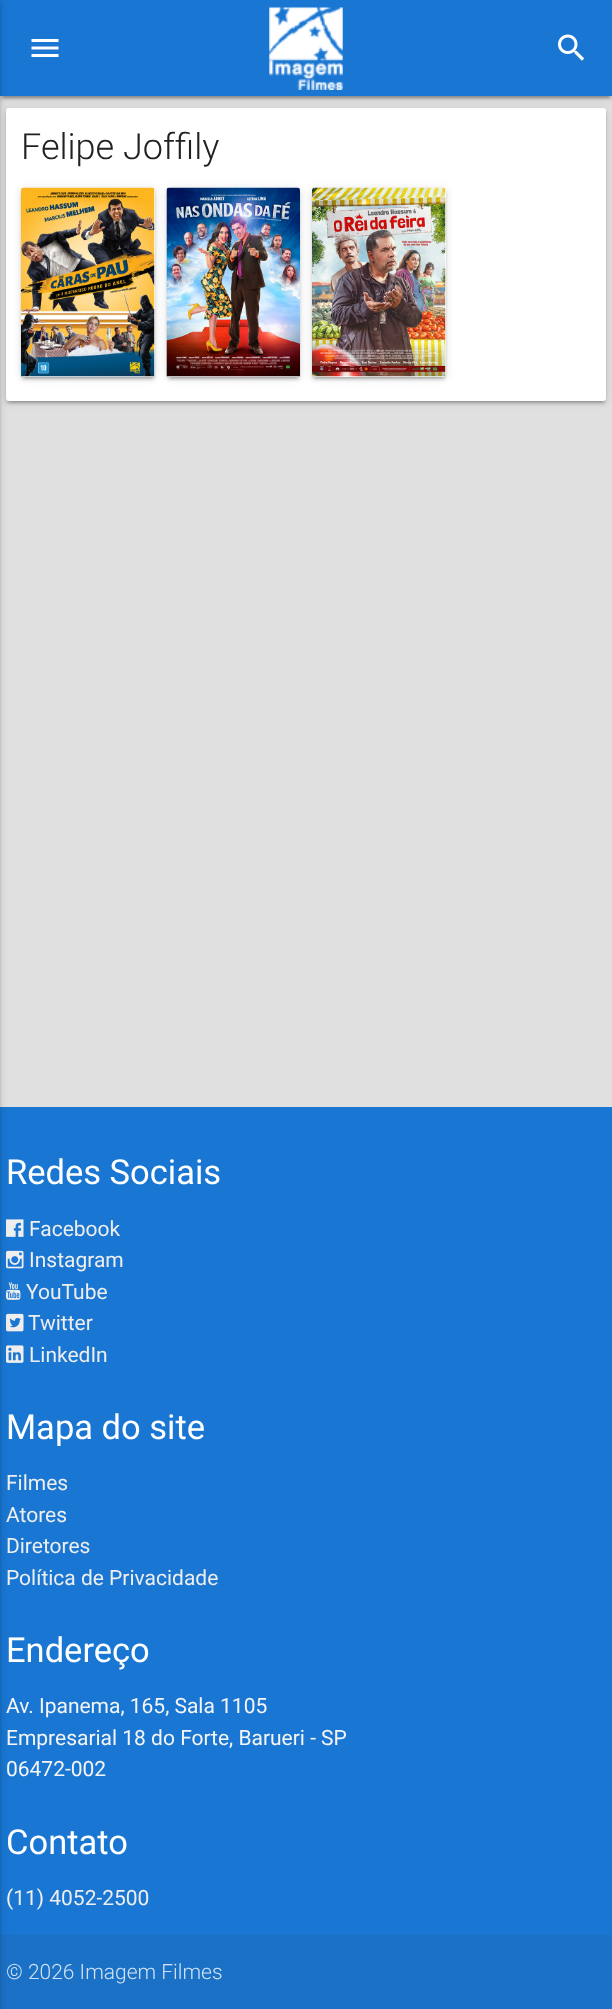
<!DOCTYPE html>
<meta charset="utf-8">
<style>body { margin: 0 } canvas { display: block }</style>
<canvas id="canvas" width="612" height="2009"></canvas>
<script type="module">
  const canvas = document.getElementById("canvas");
  const ctx = canvas.getContext("2d");
  ctx.miterLimit = 4;
  ctx.fontKerning = "normal";
  async function loadImage(src) {
    const img = new Image();
    img.src = src;
    await img.decode();
    return img;
  }

  ctx.fillStyle = "#e0e0e0";
  ctx.fillRect(0, 0, 612, 2009);
  ctx.fillStyle = "rgba(0, 0, 0, 0.2)";
  ctx.filter = "blur(1px)";
  ctx.beginPath();
  ctx.rect(3, 8, 606, 90);
  ctx.fill();
  ctx.filter = "none";
  ctx.fillStyle = "rgba(0, 0, 0, 0.12)";
  ctx.filter = "blur(4px)";
  ctx.beginPath();
  ctx.rect(0, 2, 612, 96);
  ctx.fill();
  ctx.filter = "none";
  ctx.fillStyle = "rgba(0, 0, 0, 0.14)";
  ctx.filter = "blur(1.5px)";
  ctx.beginPath();
  ctx.rect(0, 3, 612, 96);
  ctx.fill();
  ctx.filter = "none";
  ctx.fillStyle = "#1976d2";
  ctx.fillRect(0, 0, 612, 96);
  ctx.fillStyle = "rgba(0, 0, 0, 0.2)";
  ctx.filter = "blur(1px)";
  ctx.beginPath();
  ctx.rect(9, 116, 594, 286);
  ctx.fill();
  ctx.filter = "none";
  ctx.fillStyle = "rgba(0, 0, 0, 0.12)";
  ctx.filter = "blur(4px)";
  ctx.beginPath();
  ctx.roundRect(6, 110, 600, 292, 3);
  ctx.fill();
  ctx.filter = "none";
  ctx.fillStyle = "rgba(0, 0, 0, 0.14)";
  ctx.filter = "blur(1.5px)";
  ctx.beginPath();
  ctx.roundRect(6, 111, 600, 293, 3);
  ctx.fill();
  ctx.filter = "none";
  ctx.fillStyle = "#ffffff";
  ctx.beginPath();
  ctx.roundRect(6, 108, 600, 293, 3);
  ctx.fill();
  ctx.fillStyle = "#1976d2";
  ctx.fillRect(0, 1107, 612, 828);
  ctx.drawImage(await loadImage("img7.png"), 6, 1219, 18, 18);
  ctx.drawImage(await loadImage("img8.png"), 6, 1250, 18, 19);
  ctx.drawImage(await loadImage("img9.png"), 6, 1282, 15, 18);
  ctx.drawImage(await loadImage("img10.png"), 6, 1313, 18, 19);
  ctx.drawImage(await loadImage("img11.png"), 6, 1345, 18, 18);
  ctx.fillStyle = "#1b71c5";
  ctx.fillRect(0, 1935, 612, 74);
  ctx.fillStyle = "rgba(0, 0, 0, 0.12)";
  ctx.filter = "blur(4px)";
  ctx.beginPath();
  ctx.rect(-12, 2, 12, 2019);
  ctx.fill();
  ctx.filter = "none";
  ctx.fillStyle = "rgba(0, 0, 0, 0.14)";
  ctx.filter = "blur(1.5px)";
  ctx.beginPath();
  ctx.rect(-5, 3, 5, 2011);
  ctx.fill();
  ctx.filter = "none";
  ctx.drawImage(await loadImage("img1.png"), 31, 39, 28, 18);
  ctx.drawImage(await loadImage("img2.png"), 269, 7, 74, 83);
  ctx.drawImage(await loadImage("img3.png"), 558, 34, 27, 27);
  ctx.font = "300 36px Roboto";
  ctx.fillStyle = "#212121";
  ctx.fillText("Felipe Joffily", 21, 159);
  ctx.fillStyle = "rgba(0, 0, 0, 0.2)";
  ctx.filter = "blur(1px)";
  ctx.beginPath();
  ctx.rect(24, 195, 128, 183);
  ctx.fill();
  ctx.filter = "none";
  ctx.fillStyle = "rgba(0, 0, 0, 0.12)";
  ctx.filter = "blur(4px)";
  ctx.beginPath();
  ctx.roundRect(21, 189, 134, 189, 3);
  ctx.fill();
  ctx.filter = "none";
  ctx.fillStyle = "rgba(0, 0, 0, 0.14)";
  ctx.filter = "blur(1.5px)";
  ctx.beginPath();
  ctx.roundRect(21, 191, 134, 189, 3);
  ctx.fill();
  ctx.filter = "none";
  ctx.fillStyle = "#ffffff";
  ctx.beginPath();
  ctx.roundRect(21, 188, 134, 189, 3);
  ctx.fill();
  ctx.drawImage(await loadImage("img4.png"), 21, 187, 134, 190);
  ctx.fillStyle = "rgba(0, 0, 0, 0.2)";
  ctx.filter = "blur(1px)";
  ctx.beginPath();
  ctx.rect(170, 195, 127, 183);
  ctx.fill();
  ctx.filter = "none";
  ctx.fillStyle = "rgba(0, 0, 0, 0.12)";
  ctx.filter = "blur(4px)";
  ctx.beginPath();
  ctx.roundRect(167, 189, 133, 189, 3);
  ctx.fill();
  ctx.filter = "none";
  ctx.fillStyle = "rgba(0, 0, 0, 0.14)";
  ctx.filter = "blur(1.5px)";
  ctx.beginPath();
  ctx.roundRect(167, 191, 133, 189, 3);
  ctx.fill();
  ctx.filter = "none";
  ctx.fillStyle = "#ffffff";
  ctx.beginPath();
  ctx.roundRect(167, 188, 133, 189, 3);
  ctx.fill();
  ctx.drawImage(await loadImage("img5.png"), 166, 187, 134, 190);
  ctx.fillStyle = "rgba(0, 0, 0, 0.2)";
  ctx.filter = "blur(1px)";
  ctx.beginPath();
  ctx.rect(315, 195, 128, 183);
  ctx.fill();
  ctx.filter = "none";
  ctx.fillStyle = "rgba(0, 0, 0, 0.12)";
  ctx.filter = "blur(4px)";
  ctx.beginPath();
  ctx.roundRect(312, 189, 134, 189, 3);
  ctx.fill();
  ctx.filter = "none";
  ctx.fillStyle = "rgba(0, 0, 0, 0.14)";
  ctx.filter = "blur(1.5px)";
  ctx.beginPath();
  ctx.roundRect(312, 191, 134, 189, 3);
  ctx.fill();
  ctx.filter = "none";
  ctx.fillStyle = "#ffffff";
  ctx.beginPath();
  ctx.roundRect(312, 188, 134, 189, 3);
  ctx.fill();
  ctx.drawImage(await loadImage("img6.png"), 312, 187, 134, 190);
  ctx.font = "34.5px Roboto";
  ctx.fillText("Redes Sociais", 6, 1184);
  ctx.font = "21px Roboto";
  ctx.fillStyle = "#eeeeee";
  ctx.fillText("Facebook", 29, 1236);
  ctx.fillText("Instagram", 29, 1267);
  ctx.fillText("YouTube", 26, 1299);
  ctx.fillText("Twitter", 28, 1330);
  ctx.fillText("LinkedIn", 29, 1362);
  ctx.font = "34.5px Roboto";
  ctx.fillStyle = "#ffffff";
  ctx.fillText("Mapa do site", 6, 1439);
  ctx.font = "21px Roboto";
  ctx.fillStyle = "#eeeeee";
  ctx.fillText("Filmes", 6, 1490);
  ctx.fillText("Atores", 6, 1522);
  ctx.fillText("Diretores", 6, 1553);
  ctx.fillText("Política de Privacidade", 6, 1585);
  ctx.font = "34.5px Roboto";
  ctx.fillStyle = "#ffffff";
  ctx.fillText("Endereço", 6, 1662);
  ctx.font = "21px Roboto";
  ctx.fillStyle = "#f5f5f5";
  ctx.fillText("Av. Ipanema, 165, Sala 1105", 6, 1713);
  ctx.fillText("Empresarial 18 do Forte, Barueri - SP", 6, 1745);
  ctx.fillText("06472-002", 6, 1776);
  ctx.font = "34.5px Roboto";
  ctx.fillStyle = "#ffffff";
  ctx.fillText("Contato", 6, 1854);
  ctx.font = "21px Roboto";
  ctx.fillStyle = "#eeeeee";
  ctx.fillText("(11) 4052-2500", 6, 1905);
  ctx.font = "300 21px Roboto";
  ctx.fillStyle = "#d1e3f3";
  ctx.fillText("© 2026 Imagem Filmes", 6, 1979);
</script>
